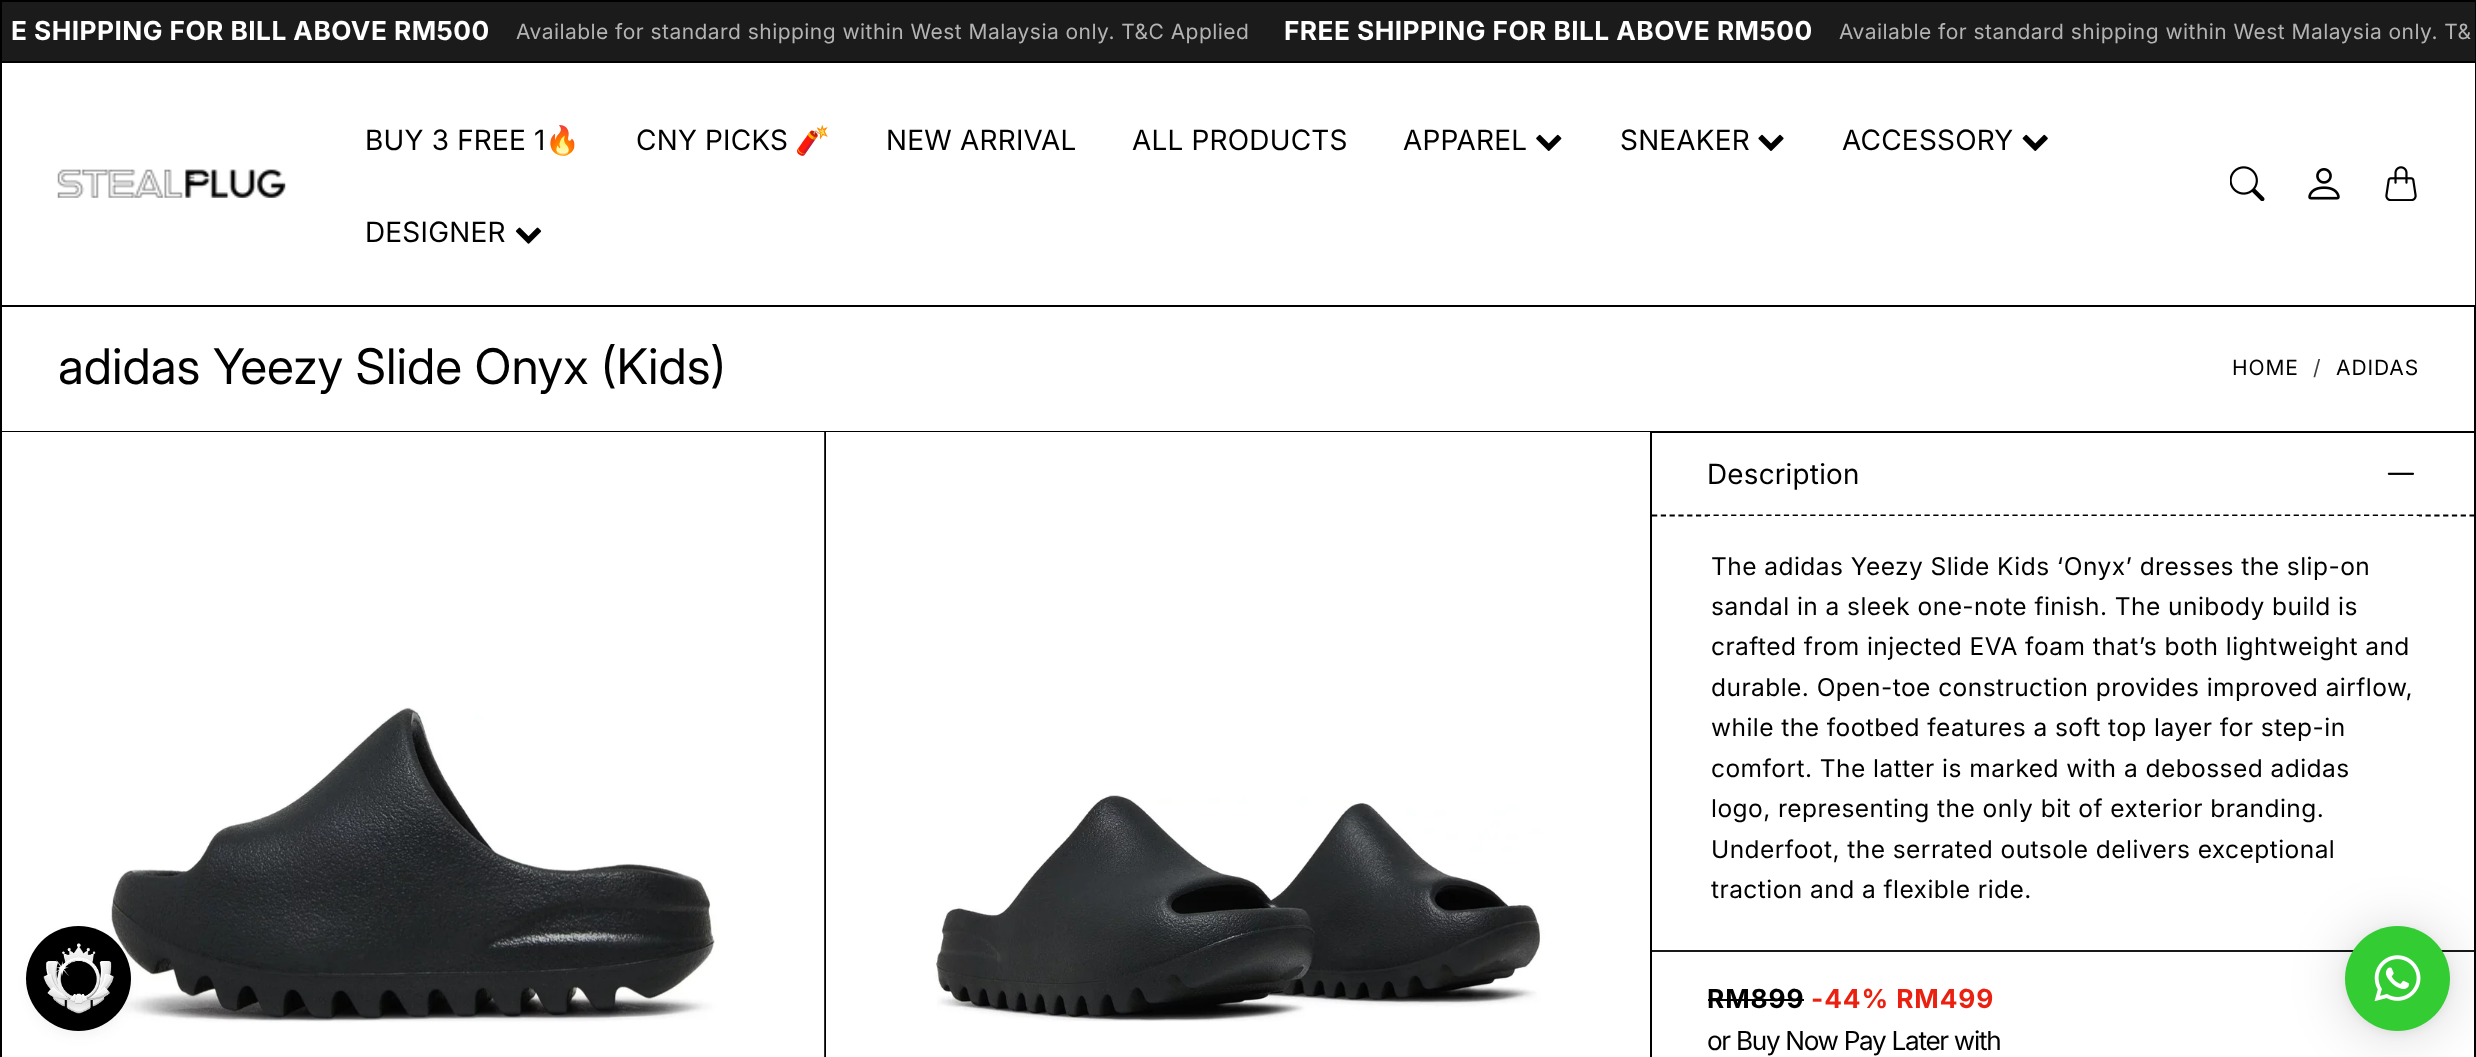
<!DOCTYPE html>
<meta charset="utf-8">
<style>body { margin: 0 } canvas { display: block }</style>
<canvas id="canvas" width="2476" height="1057"></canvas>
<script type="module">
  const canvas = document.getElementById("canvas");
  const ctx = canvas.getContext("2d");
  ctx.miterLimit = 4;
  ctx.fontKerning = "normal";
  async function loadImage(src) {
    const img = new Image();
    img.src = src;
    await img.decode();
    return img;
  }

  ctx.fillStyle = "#ffffff";
  ctx.fillRect(0, 0, 2476, 1057);
  ctx.strokeStyle = "#000000";
  ctx.lineWidth = 2;
  ctx.strokeRect(1, 1, 2474, 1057);
  ctx.fillStyle = "#1c1b1b";
  ctx.fillRect(2, 2, 2473, 59);
  ctx.letterSpacing = "0.45px";
  ctx.font = "bold 26.25px Inter";
  ctx.fillStyle = "#ffffff";
  ctx.fillText("E SHIPPING FOR BILL ABOVE RM500", 11, 40);
  ctx.font = "21px 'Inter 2'";
  ctx.fillStyle = "#b3b3b3";
  ctx.fillText("Available for standard shipping within West Malaysia only. T&C Applied", 516, 39);
  ctx.font = "bold 26.25px Inter";
  ctx.fillStyle = "#ffffff";
  ctx.fillText("FREE SHIPPING FOR BILL ABOVE RM500", 1284, 40);
  ctx.font = "21px 'Inter 2'";
  ctx.fillStyle = "#b3b3b3";
  ctx.fillText("Available for standard shipping within West Malaysia only. T&", 1839, 39);
  ctx.fillStyle = "#ffffff";
  ctx.fillRect(2474, 63, 1, 242);
  ctx.fillStyle = "#000000";
  ctx.fillRect(2, 61, 2473, 2);
  ctx.fillRect(2, 305, 2473, 2);
  ctx.drawImage(await loadImage("img1.png"), 57, 169, 229, 29);
  ctx.letterSpacing = "0.25px";
  ctx.font = "28px 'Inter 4'";
  ctx.fillText("BUY 3 FREE 1", 365, 150);
  ctx.font = "28px Noto Color Emoji";
  ctx.fillText("🔥", 545, 150);
  ctx.font = "28px 'Inter 4'";
  ctx.fillText("CNY PICKS", 636, 150);
  ctx.font = "28px Noto Color Emoji";
  ctx.fillText("🧨", 795, 150);
  ctx.font = "28px 'Inter 4'";
  ctx.fillText("NEW ARRIVAL", 886, 150);
  ctx.fillText("ALL PRODUCTS", 1132, 150);
  ctx.fillText("APPAREL", 1403, 150);
  ctx.drawImage(await loadImage("img2.png"), 1536, 134, 26, 17);
  ctx.fillText("SNEAKER", 1620, 150);
  ctx.drawImage(await loadImage("img3.png"), 1758, 134, 26, 17);
  ctx.fillText("ACCESSORY", 1842, 150);
  ctx.drawImage(await loadImage("img4.png"), 2022, 134, 26, 17);
  ctx.fillText("DESIGNER", 365, 242);
  ctx.drawImage(await loadImage("img5.png"), 515, 227, 27, 17);
  ctx.drawImage(await loadImage("img6.png"), 2230, 166, 35, 35);
  ctx.drawImage(await loadImage("img7.png"), 2308, 168, 32, 32);
  ctx.drawImage(await loadImage("img8.png"), 2385, 166, 32, 35);
  ctx.fillRect(2, 431, 2473, 2);
  ctx.letterSpacing = "0px";
  ctx.font = "49px Inter";
  ctx.fillText("adidas Yeezy Slide Onyx (Kids)", 58, 384);
  ctx.letterSpacing = "0.9px";
  ctx.font = "21px 'Inter 2'";
  ctx.fillText("HOME", 2232, 375);
  ctx.fillStyle = "#404040";
  ctx.fillText("/", 2313, 375);
  ctx.fillStyle = "#000000";
  ctx.fillText("ADIDAS", 2336, 375);
  ctx.fillRect(1650, 432, 2, 625);
  ctx.fillRect(824, 432, 2, 625);
  ctx.drawImage(await loadImage("img9.png"), 2, 432, 823, 625);
  ctx.drawImage(await loadImage("img10.png"), 826, 432, 824, 590);
  ctx.fillStyle = "rgba(0, 0, 0, 0.9)";
  ctx.fillRect(1652, 950, 823, 2);
  ctx.letterSpacing = "0.25px";
  ctx.font = "28px 'Inter 4'";
  ctx.fillStyle = "#000000";
  ctx.fillText("Description", 1707, 484);
  ctx.drawImage(await loadImage("img11.png"), 2387, 472, 27, 3);
  ctx.beginPath();
  ctx.moveTo(1652, 515.5);
  ctx.lineTo(2474.5, 515.5);
  ctx.lineWidth = 1.8;
  ctx.setLineDash([5.25, 3.54]);
  ctx.stroke();
  ctx.fillStyle = "#ffffff";
  ctx.fillRect(1708, 516, 711, 1);
  ctx.letterSpacing = "0.45px";
  ctx.font = "24.5px 'Inter 2'";
  ctx.fillStyle = "#000000";
  ctx.fillText("The adidas Yeezy Slide Kids ‘Onyx’ dresses the slip-on", 1711, 575);
  ctx.fillText("sandal in a sleek one-note finish. The unibody build is", 1711, 615);
  ctx.fillText("crafted from injected EVA foam that’s both lightweight and", 1711, 655);
  ctx.fillText("durable. Open-toe construction provides improved airflow,", 1711, 696);
  ctx.fillText("while the footbed features a soft top layer for step-in", 1711, 736);
  ctx.fillText("comfort. The latter is marked with a debossed adidas", 1711, 777);
  ctx.fillText("logo, representing the only bit of exterior branding.", 1711, 817);
  ctx.fillText("Underfoot, the serrated outsole delivers exceptional", 1711, 858);
  ctx.fillText("traction and a flexible ride.", 1711, 898);
  ctx.letterSpacing = "0.9px";
  ctx.font = "bold 26.25px Inter";
  ctx.fillText("RM899", 1707, 1008);
  ctx.fillRect(1708, 999, 96, 2);
  ctx.fillStyle = "#ea2110";
  ctx.fillText("-44% RM499", 1811, 1008);
  ctx.letterSpacing = "-1.3px";
  ctx.font = "26.25px 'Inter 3'";
  ctx.fillStyle = "#000000";
  ctx.fillText("or Buy Now Pay Later with", 1707, 1050);
  ctx.fillStyle = "rgba(68, 68, 68, 0.08)";
  ctx.filter = "blur(7px)";
  ctx.beginPath();
  ctx.roundRect(30, 936, 98, 98, 49);
  ctx.fill();
  ctx.filter = "none";
  ctx.fillStyle = "#000000";
  ctx.beginPath();
  ctx.arc(78.5, 978.5, 52.5, 0, Math.PI * 2);
  ctx.fill();
  ctx.drawImage(await loadImage("img12.png"), 43, 943, 71, 71);
  ctx.fillStyle = "rgba(0, 0, 0, 0.16)";
  ctx.filter = "blur(28px)";
  ctx.beginPath();
  ctx.roundRect(2345, 929, 105, 105, 52.5);
  ctx.fill();
  ctx.filter = "none";
  ctx.fillStyle = "rgba(0, 0, 0, 0.06)";
  ctx.filter = "blur(5px)";
  ctx.beginPath();
  ctx.roundRect(2345, 928, 105, 105, 52.5);
  ctx.fill();
  ctx.filter = "none";
  ctx.fillStyle = "#33cc33";
  ctx.beginPath();
  ctx.arc(2397.5, 978.5, 52.5, 0, Math.PI * 2);
  ctx.fill();
  ctx.drawImage(await loadImage("img13.png"), 2374, 955, 47, 47);
</script>
